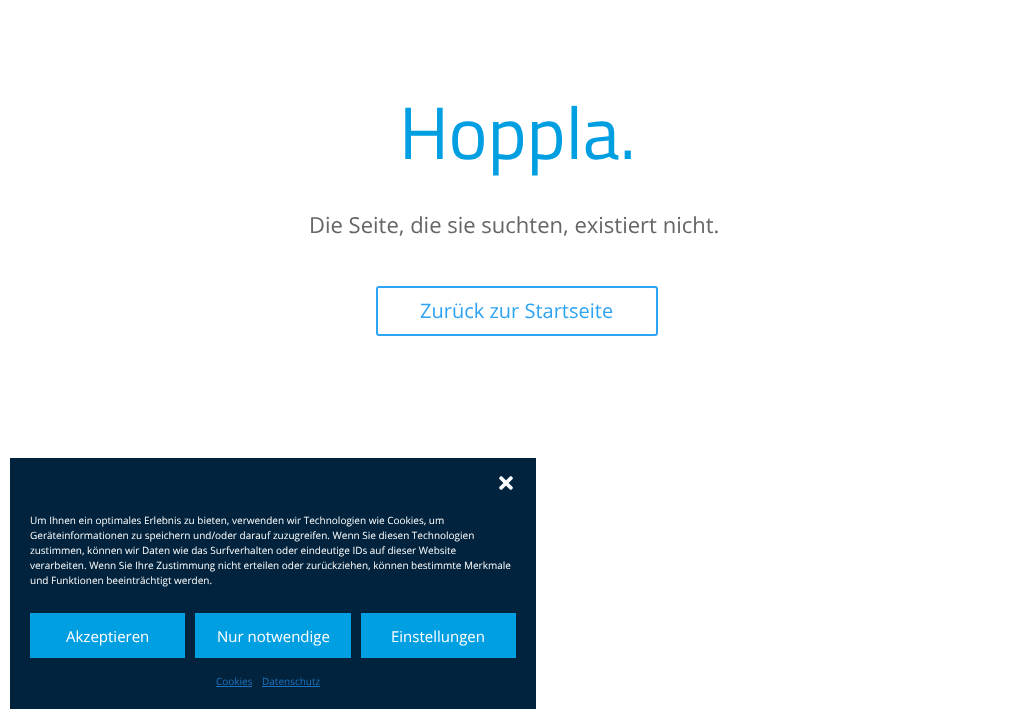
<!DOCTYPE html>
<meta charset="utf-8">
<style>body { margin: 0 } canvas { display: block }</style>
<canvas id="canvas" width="1034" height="719"></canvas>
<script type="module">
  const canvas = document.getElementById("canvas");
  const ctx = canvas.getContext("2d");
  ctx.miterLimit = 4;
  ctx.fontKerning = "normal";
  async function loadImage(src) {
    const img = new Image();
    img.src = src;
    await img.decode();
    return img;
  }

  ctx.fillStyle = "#ffffff";
  ctx.fillRect(0, 0, 1034, 719);
  ctx.font = "74px Titillium Web";
  ctx.fillStyle = "#009fe2";
  ctx.fillText("Hoppla.", 399, 159);
  ctx.font = "22px Open Sans";
  ctx.fillStyle = "#666666";
  ctx.fillText("Die Seite, die sie suchten, existiert nicht.", 309, 233);
  ctx.beginPath();
  ctx.roundRect(377, 287, 280, 48, 2);
  ctx.strokeStyle = "#2ea3f2";
  ctx.lineWidth = 2;
  ctx.stroke();
  ctx.font = "20px Open Sans";
  ctx.fillStyle = "#2ea3f2";
  ctx.fillText("Zurück zur Startseite", 420, 318);
  ctx.fillStyle = "#01233d";
  ctx.fillRect(10, 458, 526, 251);
  ctx.drawImage(await loadImage("img1.png"), 499, 476, 14, 14);
  ctx.font = "10px Open Sans";
  ctx.fillStyle = "#ffffff";
  ctx.fillText("Um Ihnen ein optimales Erlebnis zu bieten, verwenden wir Technologien wie Cookies, um", 30, 524);
  ctx.fillText("Geräteinformationen zu speichern und/oder darauf zuzugreifen. Wenn Sie diesen Technologien", 30, 539);
  ctx.fillText("zustimmen, können wir Daten wie das Surfverhalten oder eindeutige IDs auf dieser Website", 30, 554);
  ctx.fillText("verarbeiten. Wenn Sie Ihre Zustimmung nicht erteilen oder zurückziehen, können bestimmte Merkmale", 30, 569);
  ctx.fillText("und Funktionen beeinträchtigt werden.", 30, 584);
  ctx.fillStyle = "#009fe2";
  ctx.fillRect(30, 613, 155, 45);
  ctx.font = "15px Open Sans";
  ctx.fillStyle = "#ffffff";
  ctx.fillText("Akzeptieren", 66, 642);
  ctx.fillStyle = "#009fe2";
  ctx.fillRect(195, 613, 156, 45);
  ctx.fillStyle = "#ffffff";
  ctx.fillText("Nur notwendige", 217, 642);
  ctx.fillStyle = "#009fe2";
  ctx.fillRect(361, 613, 155, 45);
  ctx.fillStyle = "#ffffff";
  ctx.fillText("Einstellungen", 391, 642);
  ctx.font = "10px Open Sans";
  ctx.fillStyle = "#1e73be";
  ctx.fillText("Cookies", 216, 685);
  ctx.fillRect(216, 686, 36, 1);
  ctx.fillText("Datenschutz", 262, 685);
  ctx.fillRect(262, 686, 58, 1);
</script>
